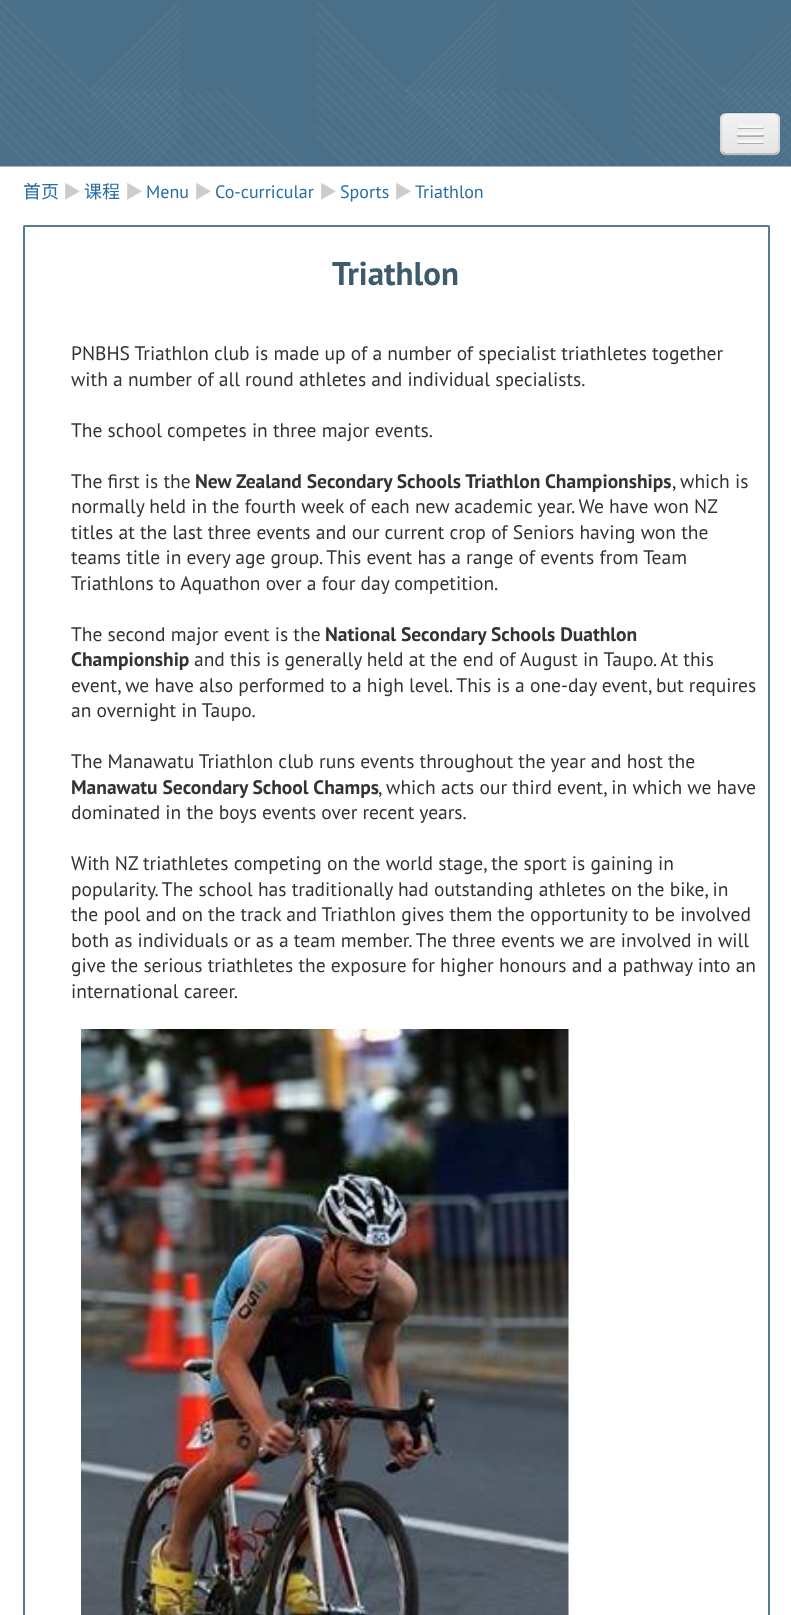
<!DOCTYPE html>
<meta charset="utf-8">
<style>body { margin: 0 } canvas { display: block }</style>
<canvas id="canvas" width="791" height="1615"></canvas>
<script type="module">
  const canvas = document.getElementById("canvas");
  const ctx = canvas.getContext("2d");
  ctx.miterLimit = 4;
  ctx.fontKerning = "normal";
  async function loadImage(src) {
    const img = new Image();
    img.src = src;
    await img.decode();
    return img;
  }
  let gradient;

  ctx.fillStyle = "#ffffff";
  ctx.fillRect(0, 0, 791, 1615);
  ctx.drawImage(await loadImage("img1.png"), 0, 0, 791, 167);
  ctx.fillStyle = "rgba(255, 255, 255, 0.07)";
  ctx.beginPath();
  ctx.moveTo(720, 148);
  ctx.bezierCurveTo(720, 158, 727, 156, 734, 156);
  ctx.lineTo(766, 156);
  ctx.bezierCurveTo(773, 156, 780, 158, 780, 148);
  ctx.bezierCurveTo(780, 152, 777, 154, 774, 154);
  ctx.lineTo(726, 154);
  ctx.bezierCurveTo(723, 154, 720, 152, 720, 148);
  ctx.closePath();
  ctx.fill();
  ctx.fillStyle = "#ededed";
  ctx.beginPath();
  ctx.roundRect(720, 113, 60, 42, 6);
  ctx.fill();
  ctx.save();
  ctx.beginPath();
  ctx.roundRect(720, 113, 60, 42, 6);
  ctx.clip();
  gradient = ctx.createLinearGradient(750, 114, 750, 153);
  gradient.addColorStop(0, "#f2f2f2");
  gradient.addColorStop(1, "#e5e5e5");
  ctx.fillStyle = gradient;
  ctx.fillRect(720, 114, 60, 39);
  ctx.restore();
  ctx.beginPath();
  ctx.moveTo(777.5, 152);
  ctx.bezierCurveTo(776.5, 153, 775.5, 154, 774, 154);
  ctx.lineTo(726, 154);
  ctx.bezierCurveTo(724.5, 154, 723.5, 153, 722.5, 152);
  ctx.strokeStyle = "rgba(0, 0, 0, 0.25)";
  ctx.lineWidth = 1.5;
  ctx.stroke();
  ctx.beginPath();
  ctx.moveTo(722.5, 152);
  ctx.bezierCurveTo(721.5, 151, 721, 150, 721, 148.5);
  ctx.lineTo(721, 118.5);
  ctx.bezierCurveTo(721, 117, 721.5, 116, 722.5, 115);
  ctx.bezierCurveTo(723.5, 114, 724.5, 113, 726, 113);
  ctx.lineTo(774, 113);
  ctx.bezierCurveTo(775.5, 113, 776.5, 114, 777.5, 115);
  ctx.bezierCurveTo(778.5, 116, 779, 117, 779, 118.5);
  ctx.lineTo(779, 148.5);
  ctx.bezierCurveTo(779, 150, 778.5, 151, 777.5, 152);
  ctx.strokeStyle = "rgba(0, 0, 0, 0.1)";
  ctx.stroke();
  ctx.fillStyle = "#b2b2b2";
  ctx.beginPath();
  ctx.moveTo(737, 127);
  ctx.bezierCurveTo(736.5, 130, 742, 129, 742.5, 129);
  ctx.lineTo(762.5, 129);
  ctx.bezierCurveTo(764, 129, 764.5, 127, 763.5, 126.5);
  ctx.lineTo(762.5, 127.5);
  ctx.bezierCurveTo(761, 128, 737.5, 127.5, 737, 127);
  ctx.closePath();
  ctx.fill();
  ctx.fillStyle = "#f5f5f5";
  ctx.beginPath();
  ctx.roundRect(737, 125, 27, 3, 1.5);
  ctx.fill();
  ctx.fillStyle = "#b0b0b0";
  ctx.beginPath();
  ctx.moveTo(737, 135);
  ctx.bezierCurveTo(735.5, 138, 742.5, 137, 742.5, 137);
  ctx.lineTo(763, 137);
  ctx.bezierCurveTo(764, 136.5, 764.5, 135, 763.5, 134);
  ctx.lineTo(762, 135);
  ctx.bezierCurveTo(760, 135.5, 738, 135.5, 737, 135);
  ctx.closePath();
  ctx.fill();
  ctx.fillStyle = "#f5f5f5";
  ctx.beginPath();
  ctx.roundRect(737, 132, 27, 3, 1.5);
  ctx.fill();
  ctx.fillStyle = "#aeaeae";
  ctx.beginPath();
  ctx.moveTo(737, 142);
  ctx.bezierCurveTo(736.5, 145, 742, 144, 742.5, 144);
  ctx.lineTo(762.5, 144);
  ctx.bezierCurveTo(764, 144, 764.5, 142, 763.5, 141.5);
  ctx.lineTo(762.5, 142.5);
  ctx.bezierCurveTo(761, 143, 737.5, 142.5, 737, 142);
  ctx.closePath();
  ctx.fill();
  ctx.fillStyle = "#f5f5f5";
  ctx.beginPath();
  ctx.roundRect(737, 140, 27, 3, 1.5);
  ctx.fill();
  ctx.font = "18px Noto Sans CJK SC";
  ctx.fillStyle = "#296ea3";
  ctx.fillText("首页", 23, 198);
  ctx.fillStyle = "#cccccc";
  ctx.fillText("▶︎", 63, 198);
  ctx.fillStyle = "#296ea3";
  ctx.fillText("课程", 84, 198);
  ctx.fillStyle = "#cccccc";
  ctx.fillText("▶︎", 125, 198);
  ctx.font = "18px PT Sans";
  ctx.fillStyle = "#296ea3";
  ctx.fillText("Menu", 146, 198);
  ctx.font = "18px Noto Sans CJK SC";
  ctx.fillStyle = "#cccccc";
  ctx.fillText("▶︎", 194, 198);
  ctx.font = "18px PT Sans";
  ctx.fillStyle = "#296ea3";
  ctx.fillText("Co-curricular", 215, 198);
  ctx.font = "18px Noto Sans CJK SC";
  ctx.fillStyle = "#cccccc";
  ctx.fillText("▶︎", 319, 198);
  ctx.font = "18px PT Sans";
  ctx.fillStyle = "#296ea3";
  ctx.fillText("Sports", 340, 198);
  ctx.font = "18px Noto Sans CJK SC";
  ctx.fillStyle = "#cccccc";
  ctx.fillText("▶︎", 394, 198);
  ctx.font = "18px PT Sans";
  ctx.fillStyle = "#296ea3";
  ctx.fillText("Triathlon", 415, 198);
  ctx.beginPath();
  ctx.roundRect(24, 226, 745, 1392, 0.5);
  ctx.strokeStyle = "#597b91";
  ctx.lineWidth = 2;
  ctx.stroke();
  ctx.font = "bold 33px PT Sans";
  ctx.fillStyle = "#3e5a6d";
  ctx.fillText("Triathlon", 332, 285);
  ctx.font = "19.5px PT Sans";
  ctx.fillStyle = "#333333";
  ctx.fillText("PNBHS Triathlon club is made up of a number of specialist triathletes together", 71, 360);
  ctx.fillText("with a number of all round athletes and individual specialists.", 71, 386);
  ctx.fillText("The school competes in three major events.", 71, 437);
  ctx.fillText("The first is the", 71, 488);
  ctx.font = "bold 19.5px PT Sans";
  ctx.fillText("New Zealand Secondary Schools Triathlon Championships", 195, 488);
  ctx.font = "19.5px PT Sans";
  ctx.fillText(", which is", 672, 488);
  ctx.fillText("normally held in the fourth week of each new academic year. We have won NZ", 71, 513);
  ctx.fillText("titles at the last three events and our current crop of Seniors having won the", 71, 539);
  ctx.fillText("teams title in every age group. This event has a range of events from Team", 71, 564);
  ctx.fillText("Triathlons to Aquathon over a four day competition.", 71, 590);
  ctx.fillText("The second major event is the", 71, 641);
  ctx.font = "bold 19.5px PT Sans";
  ctx.fillText("National Secondary Schools Duathlon", 325, 641);
  ctx.fillText("Championship", 71, 666);
  ctx.font = "19.5px PT Sans";
  ctx.fillText("and this is generally held at the end of August in Taupo. At this", 194, 666);
  ctx.fillText("event, we have also performed to a high level. This is a one-day event, but requires", 71, 692);
  ctx.fillText("an overnight in Taupo.", 71, 717);
  ctx.fillText("The Manawatu Triathlon club runs events throughout the year and host the", 71, 768);
  ctx.font = "bold 19.5px PT Sans";
  ctx.fillText("Manawatu Secondary School Champs", 71, 794);
  ctx.font = "19.5px PT Sans";
  ctx.fillText(", which acts our third event, in which we have", 378, 794);
  ctx.fillText("dominated in the boys events over recent years.", 71, 819);
  ctx.fillText("With NZ triathletes competing on the world stage, the sport is gaining in", 71, 870);
  ctx.fillText("popularity. The school has traditionally had outstanding athletes on the bike, in", 71, 896);
  ctx.fillText("the pool and on the track and Triathlon gives them the opportunity to be involved", 71, 921);
  ctx.fillText("both as individuals or as a team member. The three events we are involved in will", 71, 947);
  ctx.fillText("give the serious triathletes the exposure for higher honours and a pathway into an", 71, 972);
  ctx.fillText("international career.", 71, 998);
  ctx.drawImage(await loadImage("img2.png"), 81, 1029, 488, 586);
</script>
